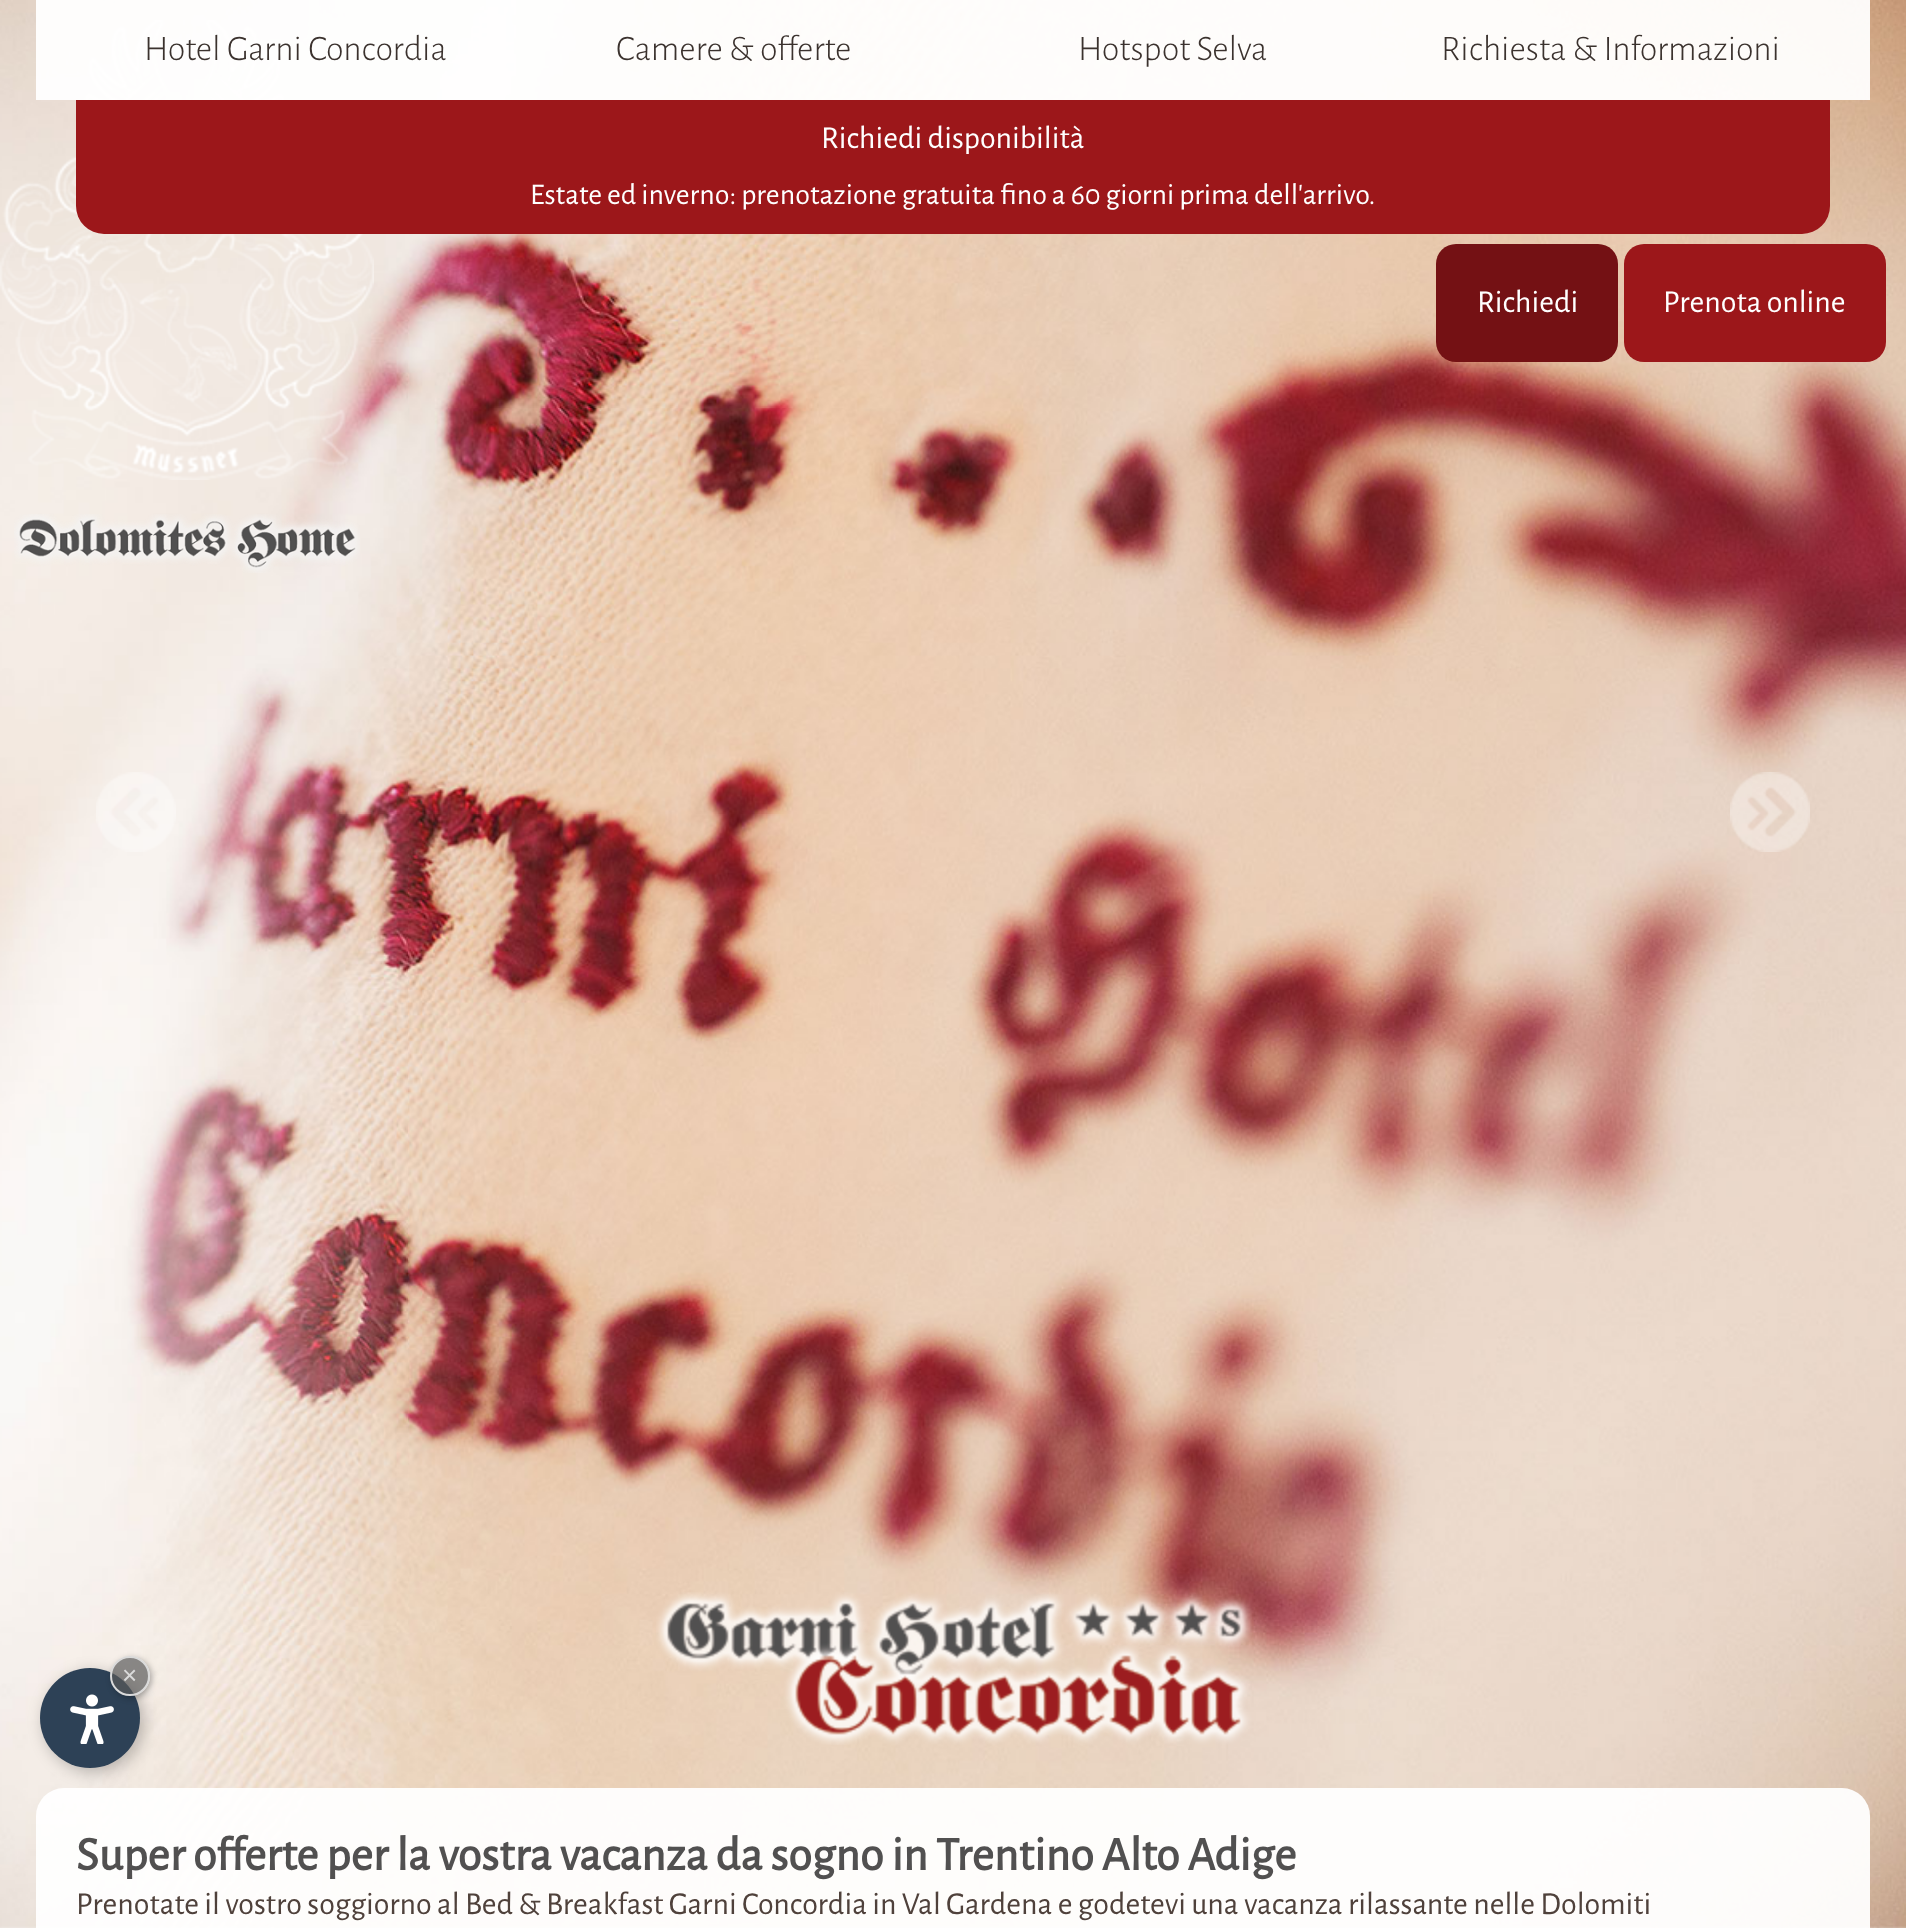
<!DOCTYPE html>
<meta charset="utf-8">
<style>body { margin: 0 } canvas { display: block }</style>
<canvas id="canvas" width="1906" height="1928"></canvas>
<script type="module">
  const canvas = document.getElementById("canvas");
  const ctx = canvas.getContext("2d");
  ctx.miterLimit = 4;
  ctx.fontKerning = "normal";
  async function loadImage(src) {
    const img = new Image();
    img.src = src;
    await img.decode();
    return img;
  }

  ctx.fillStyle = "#ffffff";
  ctx.fillRect(0, 0, 1906, 1928);
  ctx.drawImage(await loadImage("img1.png"), 0, 0, 1906, 1928);
  ctx.drawImage(await loadImage("img2.png"), 0, 20, 374, 460);
  ctx.drawImage(await loadImage("img3.png"), 14, 514, 346, 59);
  ctx.fillStyle = "rgba(255, 255, 255, 0.94)";
  ctx.fillRect(36, 0, 1834, 100);
  ctx.font = "300 36px Alegreya Sans";
  ctx.fillStyle = "#3b322e";
  ctx.fillText("Hotel Garni Concordia", 144, 60);
  ctx.fillText("Camere & offerte", 616, 60);
  ctx.fillText("Hotspot Selva", 1078, 60);
  ctx.fillText("Richiesta & Informazioni", 1441, 60);
  ctx.fillStyle = "#9c171a";
  ctx.beginPath();
  ctx.roundRect(76, 100, 1754, 134, [0, 0, 28, 28]);
  ctx.fill();
  ctx.font = "32px Alegreya Sans";
  ctx.fillStyle = "#ffffff";
  ctx.fillText("Richiedi disponibilità", 821, 148);
  ctx.font = "30px Alegreya Sans";
  ctx.fillText("Estate ed inverno: prenotazione gratuita fino a 60 giorni prima dell'arrivo.", 530, 204);
  ctx.fillStyle = "#741114";
  ctx.beginPath();
  ctx.roundRect(1436, 244, 182, 118, 20);
  ctx.fill();
  ctx.font = "32px Alegreya Sans";
  ctx.fillStyle = "#ffffff";
  ctx.fillText("Richiedi", 1477, 312);
  ctx.fillStyle = "#9c171a";
  ctx.beginPath();
  ctx.roundRect(1624, 244, 262, 118, 20);
  ctx.fill();
  ctx.fillStyle = "#ffffff";
  ctx.fillText("Prenota online", 1663, 312);
  ctx.drawImage(await loadImage("img4.png"), 96, 772, 80, 80);
  ctx.drawImage(await loadImage("img5.png"), 1730, 772, 80, 80);
  ctx.drawImage(await loadImage("img8.png"), 36, 1788, 1834, 140);
  ctx.fillStyle = "rgba(0, 0, 0, 0.25)";
  ctx.filter = "blur(8px)";
  ctx.beginPath();
  ctx.roundRect(44, 1672, 100, 100, 50);
  ctx.fill();
  ctx.filter = "none";
  ctx.fillStyle = "#2d4156";
  ctx.beginPath();
  ctx.arc(90, 1718, 50, 0, Math.PI * 2);
  ctx.fill();
  ctx.drawImage(await loadImage("img6.png"), 70, 1694, 44, 50);
  ctx.save();
  ctx.beginPath();
  ctx.moveTo(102, 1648);
  ctx.lineTo(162, 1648);
  ctx.lineTo(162, 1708);
  ctx.lineTo(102, 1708);
  ctx.closePath();
  ctx.moveTo(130, 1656);
  ctx.bezierCurveTo(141, 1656, 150, 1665, 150, 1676);
  ctx.bezierCurveTo(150, 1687, 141, 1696, 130, 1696);
  ctx.bezierCurveTo(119, 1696, 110, 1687, 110, 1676);
  ctx.bezierCurveTo(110, 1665, 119, 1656, 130, 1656);
  ctx.closePath();
  ctx.clip("evenodd");
  ctx.fillStyle = "rgba(0, 0, 0, 0.3)";
  ctx.filter = "blur(3px)";
  ctx.beginPath();
  ctx.roundRect(112, 1658, 40, 40, 20);
  ctx.fill();
  ctx.filter = "none";
  ctx.restore();
  ctx.fillStyle = "rgba(90, 90, 90, 0.7)";
  ctx.beginPath();
  ctx.arc(130, 1676, 19, 0, Math.PI * 2);
  ctx.fill();
  ctx.strokeStyle = "#dadada";
  ctx.lineWidth = 2;
  ctx.stroke();
  ctx.font = "26px Liberation Sans";
  ctx.fillStyle = "#dadada";
  ctx.fillText("×", 122, 1684);
  ctx.drawImage(await loadImage("img7.png"), 656, 1592, 596, 153);
  ctx.font = "bold 48px Alegreya Sans";
  ctx.fillStyle = "#515050";
  ctx.fillText("Super offerte per la vostra vacanza da sogno in Trentino Alto Adige", 76, 1870);
  ctx.font = "32px Alegreya Sans";
  ctx.fillStyle = "#4f413b";
  ctx.fillText("Prenotate il vostro soggiorno al Bed & Breakfast Garni Concordia in Val Gardena e godetevi una vacanza rilassante nelle Dolomiti", 76, 1914);
</script>
